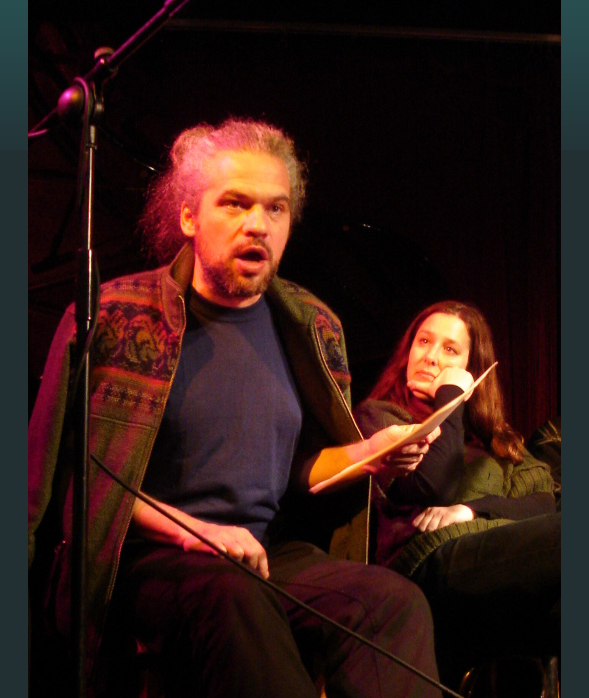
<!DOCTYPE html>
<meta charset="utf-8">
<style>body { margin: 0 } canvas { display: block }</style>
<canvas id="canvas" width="589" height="698"></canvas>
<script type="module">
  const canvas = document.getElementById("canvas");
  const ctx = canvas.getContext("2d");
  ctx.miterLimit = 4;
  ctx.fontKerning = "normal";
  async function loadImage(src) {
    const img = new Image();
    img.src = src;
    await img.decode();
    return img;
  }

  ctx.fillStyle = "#223034";
  ctx.fillRect(0, 0, 589, 698);
  ctx.drawImage(await loadImage("img1.png"), 0, 0, 589, 150);
  ctx.drawImage(await loadImage("img2.png"), 28, 0, 533, 698);
</script>
